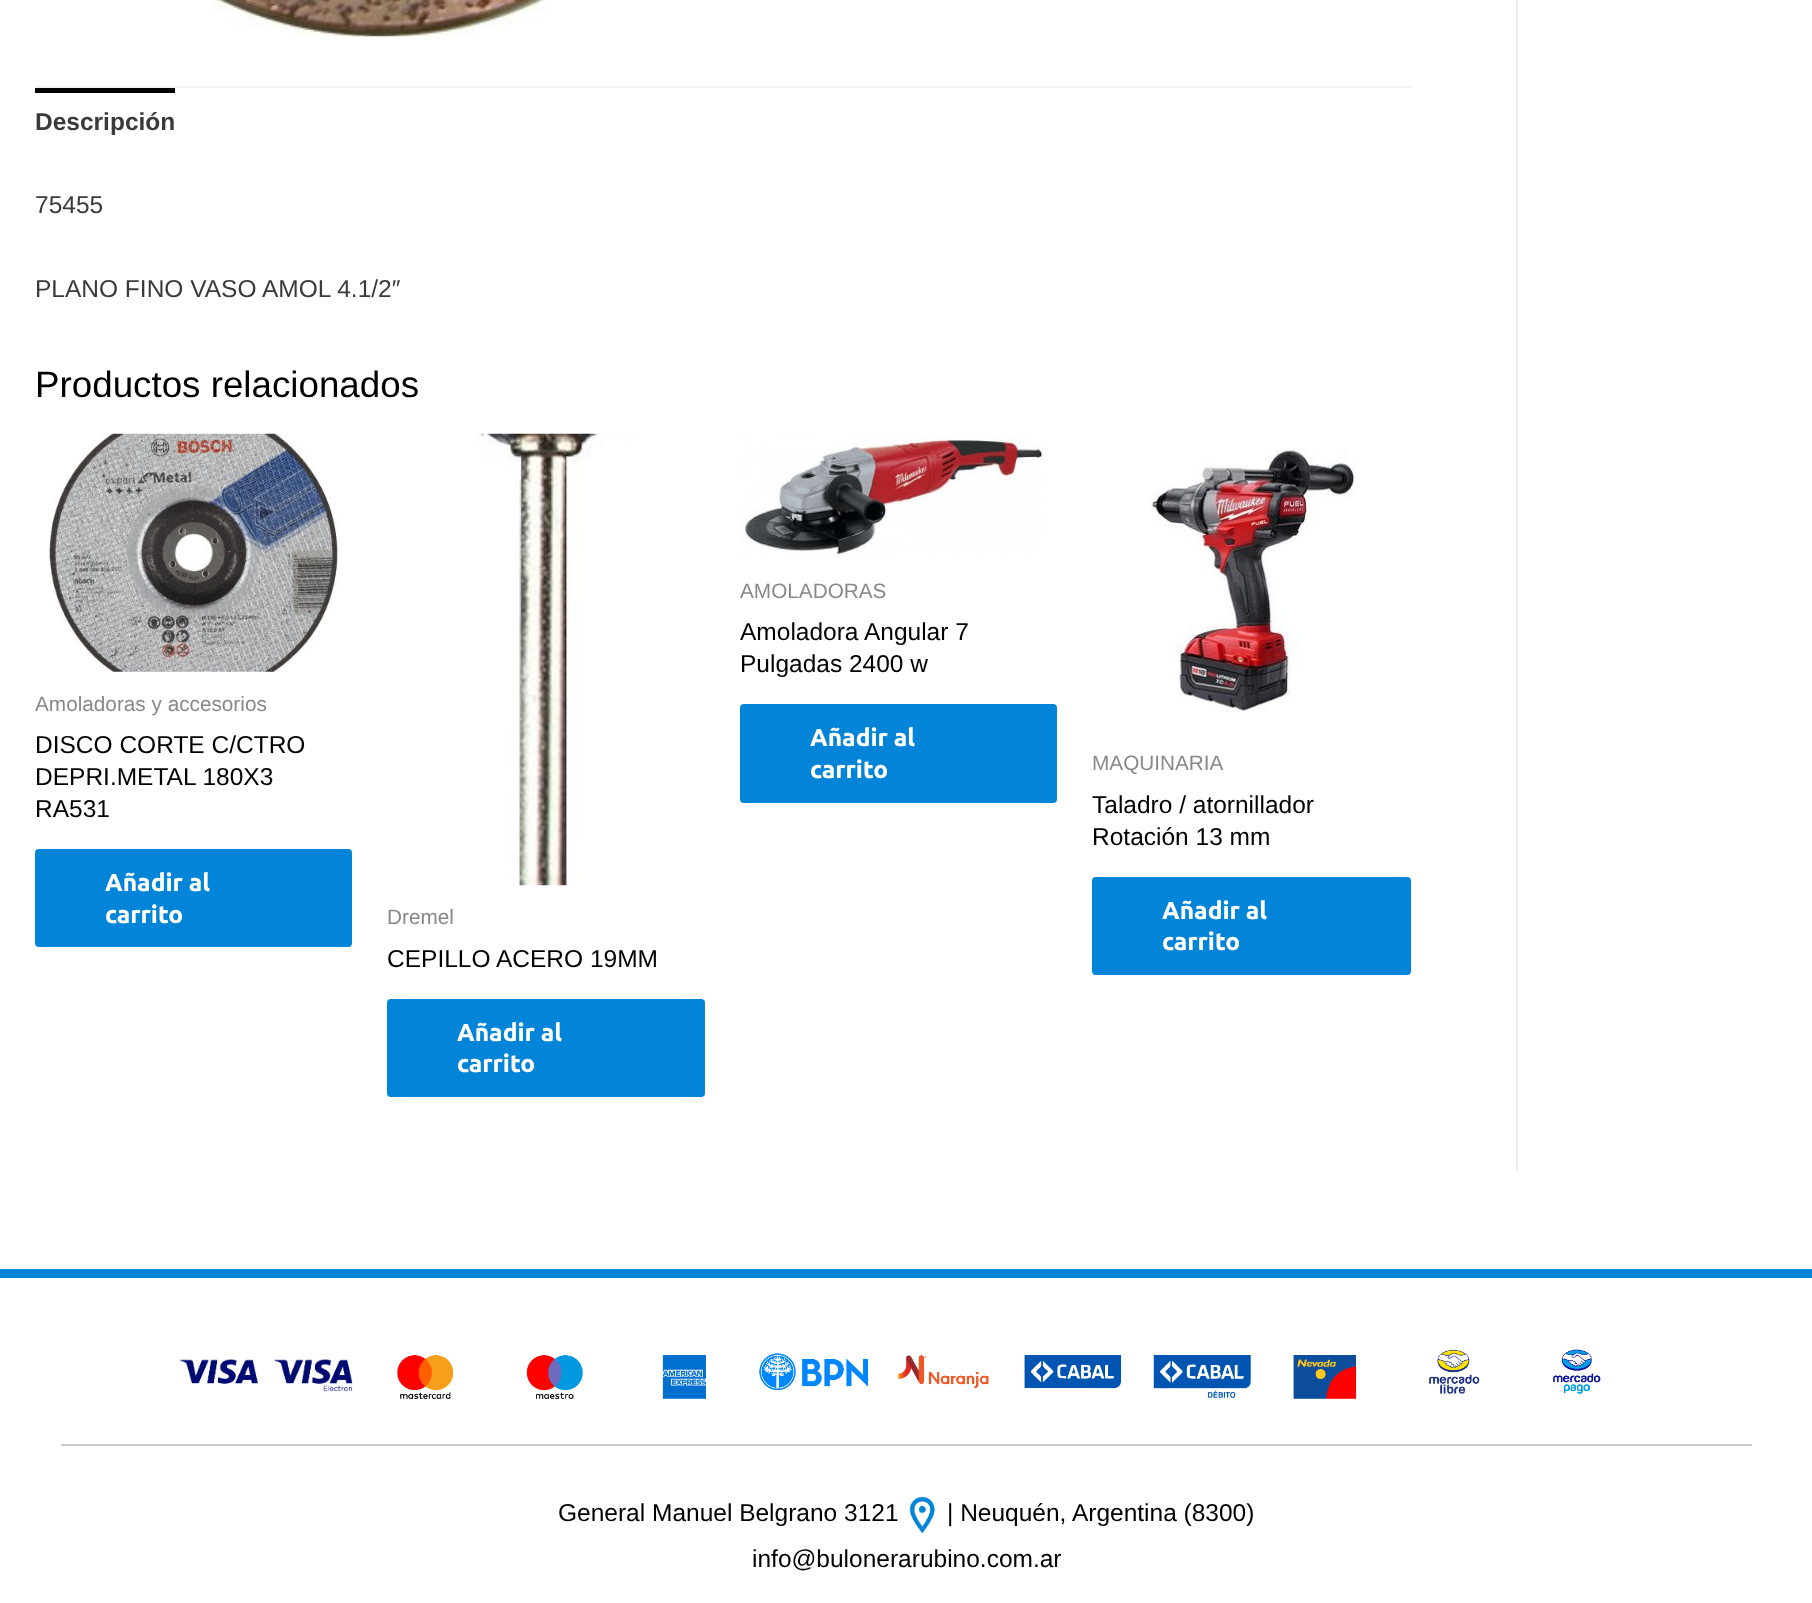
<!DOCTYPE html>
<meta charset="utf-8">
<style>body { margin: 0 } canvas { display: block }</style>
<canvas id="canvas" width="1812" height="1603"></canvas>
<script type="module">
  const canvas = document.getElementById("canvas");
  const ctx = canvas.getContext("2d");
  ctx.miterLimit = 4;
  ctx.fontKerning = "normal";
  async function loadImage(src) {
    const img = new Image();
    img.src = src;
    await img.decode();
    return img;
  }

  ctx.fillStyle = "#ffffff";
  ctx.fillRect(0, 0, 1812, 1603);
  ctx.fillStyle = "#eeeeee";
  ctx.fillRect(1516, 0, 2, 1171);
  ctx.drawImage(await loadImage("img1.png"), 212, 0, 333, 37);
  ctx.fillStyle = "#f2f2f2";
  ctx.fillRect(35, 86, 1376, 2);
  ctx.fillStyle = "#000000";
  ctx.fillRect(35, 88, 140, 5);
  ctx.font = "bold 24.5px Liberation Sans";
  ctx.fillStyle = "#3a3a3a";
  ctx.fillText("Descripción", 35, 130);
  ctx.font = "24.5px Liberation Sans";
  ctx.fillText("75455", 35, 213);
  ctx.fillText("PLANO FINO VASO AMOL 4.1/2″", 35, 297);
  ctx.font = "36.75px Liberation Sans";
  ctx.fillStyle = "#000000";
  ctx.fillText("Productos relacionados", 35, 397);
  ctx.drawImage(await loadImage("img2.png"), 48, 433, 291, 239);
  ctx.font = "20.75px Liberation Sans";
  ctx.fillStyle = "#898989";
  ctx.fillText("Amoladoras y accesorios", 35, 711);
  ctx.font = "24.5px Liberation Sans";
  ctx.fillStyle = "#000000";
  ctx.fillText("DISCO CORTE C/CTRO", 35, 753);
  ctx.fillText("DEPRI.METAL 180X3", 35, 785);
  ctx.fillText("RA531", 35, 817);
  ctx.fillStyle = "#0284d8";
  ctx.beginPath();
  ctx.roundRect(35, 849, 317, 98, 4);
  ctx.fill();
  ctx.font = "bold 24.5px Ubuntu";
  ctx.fillStyle = "#ffffff";
  ctx.fillText("Añadir al", 105, 891);
  ctx.fillText("carrito", 105, 923);
  ctx.drawImage(await loadImage("img3.png"), 740, 434, 304, 124);
  ctx.font = "20.75px Liberation Sans";
  ctx.fillStyle = "#898989";
  ctx.fillText("AMOLADORAS", 740, 598);
  ctx.font = "24.5px Liberation Sans";
  ctx.fillStyle = "#000000";
  ctx.fillText("Amoladora Angular 7", 740, 640);
  ctx.fillText("Pulgadas 2400 w", 740, 672);
  ctx.fillStyle = "#0284d8";
  ctx.beginPath();
  ctx.roundRect(740, 704, 317, 99, 4);
  ctx.fill();
  ctx.font = "bold 24.5px Ubuntu";
  ctx.fillStyle = "#ffffff";
  ctx.fillText("Añadir al", 810, 746);
  ctx.fillText("carrito", 810, 778);
  ctx.drawImage(await loadImage("img4.png"), 1148, 449, 207, 263);
  ctx.font = "20.75px Liberation Sans";
  ctx.fillStyle = "#898989";
  ctx.fillText("MAQUINARIA", 1092, 770);
  ctx.font = "24.5px Liberation Sans";
  ctx.fillStyle = "#000000";
  ctx.fillText("Taladro / atornillador", 1092, 813);
  ctx.fillText("Rotación 13 mm", 1092, 845);
  ctx.fillStyle = "#0284d8";
  ctx.beginPath();
  ctx.roundRect(1092, 877, 319, 98, 4);
  ctx.fill();
  ctx.font = "bold 24.5px Ubuntu";
  ctx.fillStyle = "#ffffff";
  ctx.fillText("Añadir al", 1162, 919);
  ctx.fillText("carrito", 1162, 950);
  ctx.drawImage(await loadImage("img5.png"), 475, 433, 158, 453);
  ctx.font = "20.75px Liberation Sans";
  ctx.fillStyle = "#898989";
  ctx.fillText("Dremel", 387, 924);
  ctx.font = "24.5px Liberation Sans";
  ctx.fillStyle = "#000000";
  ctx.fillText("CEPILLO ACERO 19MM", 387, 967);
  ctx.fillStyle = "#0284d8";
  ctx.beginPath();
  ctx.roundRect(387, 999, 318, 98, 4);
  ctx.fill();
  ctx.font = "bold 24.5px Ubuntu";
  ctx.fillStyle = "#ffffff";
  ctx.fillText("Añadir al", 457, 1041);
  ctx.fillText("carrito", 457, 1072);
  ctx.fillStyle = "#0284d8";
  ctx.fillRect(0, 1269, 1812, 9);
  ctx.drawImage(await loadImage("img6.png"), 179, 1359, 80, 25);
  ctx.drawImage(await loadImage("img7.png"), 274, 1359, 79, 33);
  ctx.drawImage(await loadImage("img8.png"), 397, 1355, 57, 44);
  ctx.drawImage(await loadImage("img9.png"), 526, 1355, 57, 44);
  ctx.drawImage(await loadImage("img10.png"), 662, 1355, 44, 44);
  ctx.drawImage(await loadImage("img11.png"), 759, 1353, 110, 38);
  ctx.drawImage(await loadImage("img12.png"), 898, 1355, 91, 34);
  ctx.drawImage(await loadImage("img13.png"), 1024, 1355, 98, 34);
  ctx.drawImage(await loadImage("img14.png"), 1153, 1355, 98, 43);
  ctx.drawImage(await loadImage("img15.png"), 1293, 1355, 64, 44);
  ctx.drawImage(await loadImage("img16.png"), 1429, 1349, 51, 45);
  ctx.drawImage(await loadImage("img17.png"), 1553, 1349, 48, 45);
  ctx.fillStyle = "#cccccc";
  ctx.fillRect(61, 1444, 1691, 2);
  ctx.font = "24.5px Liberation Sans";
  ctx.fillStyle = "#000000";
  ctx.fillText("General Manuel Belgrano 3121", 558, 1521);
  ctx.drawImage(await loadImage("img18.png"), 909, 1496, 26, 38);
  ctx.fillText("| Neuquén, Argentina (8300)", 947, 1521);
  ctx.fillText("info@bulonerarubino.com.ar", 752, 1567);
</script>
